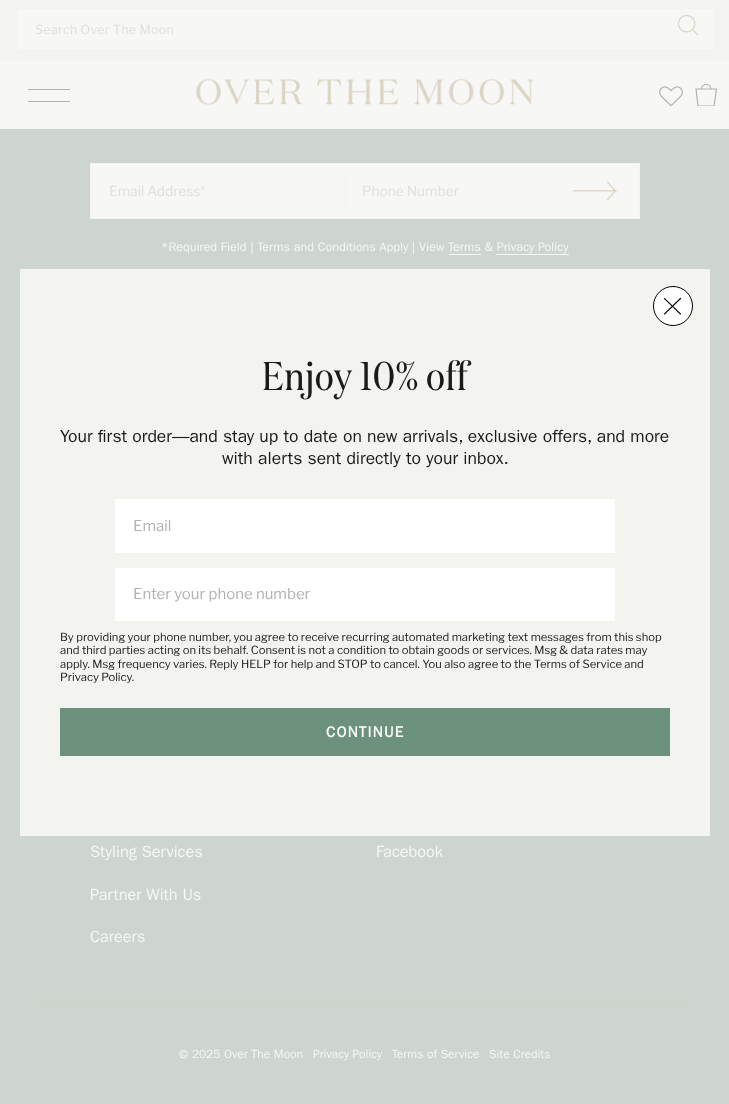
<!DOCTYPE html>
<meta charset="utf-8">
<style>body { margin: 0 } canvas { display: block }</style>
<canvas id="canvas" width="729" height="1104"></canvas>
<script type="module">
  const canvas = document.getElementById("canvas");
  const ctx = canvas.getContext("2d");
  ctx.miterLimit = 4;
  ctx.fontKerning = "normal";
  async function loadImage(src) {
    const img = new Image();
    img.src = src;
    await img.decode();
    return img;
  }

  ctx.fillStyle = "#cdd5ce";
  ctx.fillRect(0, 0, 729, 1104);
  ctx.fillStyle = "#f3f3f0";
  ctx.fillRect(0, 0, 729, 60);
  ctx.fillStyle = "#f7f7f5";
  ctx.fillRect(17, 9, 696, 40);
  ctx.letterSpacing = "0.3px";
  ctx.font = "100 12.5px Libre Franklin";
  ctx.fillStyle = "#e0e0de";
  ctx.fillText("Search Over The Moon", 35, 34);
  ctx.drawImage(await loadImage("img1.png"), 677, 14, 22, 22);
  ctx.fillStyle = "#f7f7f5";
  ctx.fillRect(0, 61, 729, 67);
  ctx.fillStyle = "#f3f3f1";
  ctx.fillRect(0, 60, 729, 1);
  ctx.fillRect(0, 128, 729, 1);
  ctx.fillStyle = "#b2b1af";
  ctx.fillRect(28, 89, 42, 1);
  ctx.fillRect(28, 101, 42, 1);
  ctx.drawImage(await loadImage("img2.png"), 196, 78, 338, 28);
  ctx.drawImage(await loadImage("img3.png"), 659, 86, 24, 20);
  ctx.save();
  ctx.beginPath();
  ctx.rect(695, 84, 23, 22);
  ctx.clip();
  ctx.beginPath();
  ctx.moveTo(714, 106);
  ctx.lineTo(698, 106);
  ctx.lineTo(696, 89);
  ctx.lineTo(716.5, 89);
  ctx.closePath();
  ctx.strokeStyle = "#b2b1af";
  ctx.lineWidth = 1.2;
  ctx.stroke();
  ctx.restore();
  ctx.beginPath();
  ctx.moveTo(701.5, 89);
  ctx.bezierCurveTo(701.5, 83, 711, 83, 711, 89);
  ctx.strokeStyle = "#b2b1af";
  ctx.lineWidth = 1.2;
  ctx.stroke();
  ctx.strokeStyle = "#f3f3f1";
  ctx.lineWidth = 1;
  ctx.strokeRect(90.5, 163.5, 549, 55);
  ctx.fillStyle = "#f7f7f5";
  ctx.fillRect(91, 164, 548, 54);
  ctx.letterSpacing = "0px";
  ctx.font = "100 13.75px Libre Franklin";
  ctx.fillStyle = "#e0e0de";
  ctx.fillText("Email Address*", 109, 196);
  ctx.fillStyle = "#f3f3f1";
  ctx.fillRect(345, 171, 1, 38);
  ctx.fillStyle = "#e0e0de";
  ctx.fillText("Phone Number", 362, 196);
  ctx.drawImage(await loadImage("img4.png"), 572, 181, 45, 20);
  ctx.font = "12.5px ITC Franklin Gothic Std";
  ctx.fillStyle = "#f7f7f5";
  ctx.fillText("*Required Field | Terms and Conditions Apply | View Terms & Privacy Policy", 161, 251);
  ctx.fillRect(449, 254, 32, 1);
  ctx.fillRect(496, 254, 73, 1);
  ctx.font = "16.25px ITC Franklin Gothic Std";
  ctx.fillText("Styling Services", 90, 857);
  ctx.fillText("Partner With Us", 90, 900);
  ctx.fillText("Careers", 90, 942);
  ctx.fillText("Facebook", 376, 857);
  ctx.fillStyle = "#cad2ca";
  ctx.fillRect(40, 1006, 650, 1);
  ctx.font = "12px ITC Franklin Gothic Std";
  ctx.fillStyle = "#f7f7f5";
  ctx.fillText("© 2025 Over The Moon", 179, 1058);
  ctx.fillText("Privacy Policy", 313, 1058);
  ctx.fillText("Terms of Service", 392, 1058);
  ctx.fillText("Site Credits", 489, 1058);
  ctx.fillStyle = "#f3f3f0";
  ctx.fillRect(20, 269, 690, 567);
  ctx.fillStyle = "#ffffff";
  ctx.beginPath();
  ctx.arc(673, 306, 19.5, 0, Math.PI * 2);
  ctx.fill();
  ctx.strokeStyle = "#000000";
  ctx.stroke();
  ctx.beginPath();
  ctx.moveTo(664.5, 314);
  ctx.lineTo(680.5, 298.5);
  ctx.moveTo(680.5, 314);
  ctx.lineTo(664.5, 298.5);
  ctx.strokeStyle = "#010101";
  ctx.lineWidth = 1.1;
  ctx.lineCap = "square";
  ctx.stroke();
  ctx.letterSpacing = "0.6px";
  ctx.font = "40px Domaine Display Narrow";
  ctx.fillStyle = "#1a1a1a";
  ctx.fillText("Enjoy 10% off", 262, 390);
  ctx.letterSpacing = "0px";
  ctx.font = "17.5px ITC Franklin Gothic Std";
  ctx.fillText("Your first order—and stay up to date on new arrivals, exclusive offers, and more", 60, 442);
  ctx.fillText("with alerts sent directly to your inbox.", 222, 464);
  ctx.fillStyle = "#ffffff";
  ctx.fillRect(115, 499, 500, 54);
  ctx.font = "100 15px Libre Franklin";
  ctx.fillStyle = "#b3b2b3";
  ctx.fillText("Email", 133, 531);
  ctx.fillStyle = "#ffffff";
  ctx.fillRect(115, 568, 500, 53);
  ctx.fillStyle = "#b3b2b3";
  ctx.fillText("Enter your phone number", 133, 599);
  ctx.font = "100 11.25px Libre Franklin";
  ctx.fillStyle = "#1a1a1a";
  ctx.fillText("By providing your phone number, you agree to receive recurring automated marketing text messages from this shop", 60, 641);
  ctx.fillText("and third parties acting on its behalf. Consent is not a condition to obtain goods or services. Msg & data rates may", 60, 654);
  ctx.fillText("apply. Msg frequency varies. Reply HELP for help and STOP to cancel. You also agree to the Terms of Service and", 60, 668);
  ctx.fillText("Privacy Policy.", 60, 681);
  ctx.fillStyle = "#6c927e";
  ctx.fillRect(60, 708, 610, 48);
  ctx.letterSpacing = "1.25px";
  ctx.font = "bold 15px ITC Franklin Gothic Std";
  ctx.fillStyle = "#ffffff";
  ctx.fillText("CONTINUE", 326, 737);
</script>
